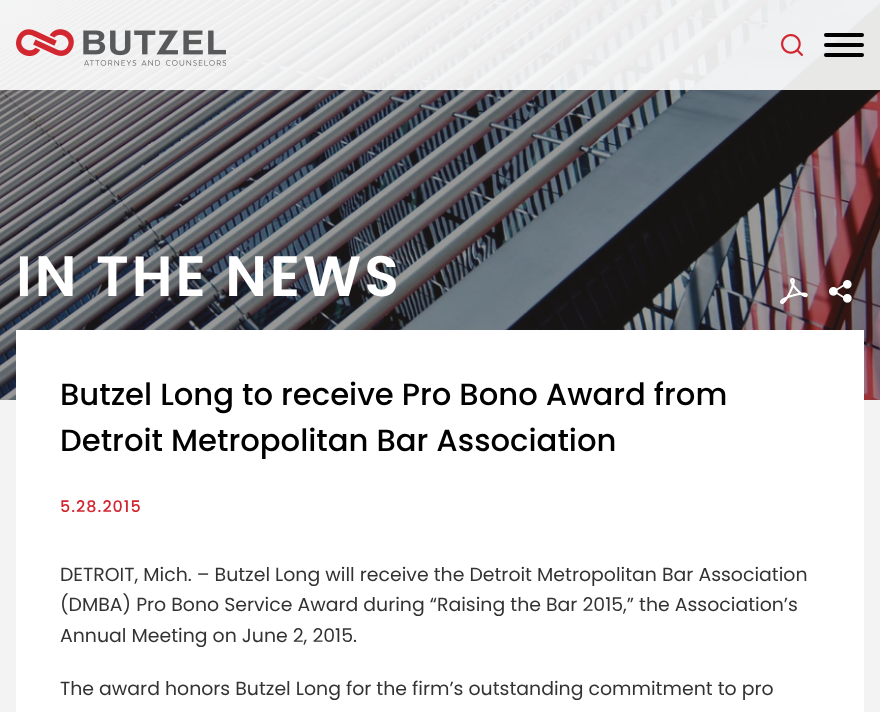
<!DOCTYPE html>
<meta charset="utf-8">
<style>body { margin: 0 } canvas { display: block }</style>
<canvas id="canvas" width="880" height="712"></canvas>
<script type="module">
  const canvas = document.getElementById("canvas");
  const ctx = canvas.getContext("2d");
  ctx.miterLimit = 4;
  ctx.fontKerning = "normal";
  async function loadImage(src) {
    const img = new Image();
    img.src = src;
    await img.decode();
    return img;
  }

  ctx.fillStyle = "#f3f3f3";
  ctx.fillRect(0, 0, 880, 712);
  ctx.drawImage(await loadImage("img3.png"), 0, 0, 880, 400);
  ctx.fillStyle = "rgba(255, 255, 255, 0.9)";
  ctx.fillRect(0, 0, 880, 90);
  ctx.drawImage(await loadImage("img1.png"), 16, 29, 210, 37);
  ctx.drawImage(await loadImage("img2.png"), 781, 34, 22, 22);
  ctx.fillStyle = "#000000";
  ctx.beginPath();
  ctx.roundRect(824, 33, 40, 4, 2);
  ctx.fill();
  ctx.beginPath();
  ctx.roundRect(824, 43, 40, 4, 2);
  ctx.fill();
  ctx.beginPath();
  ctx.roundRect(824, 53, 40, 4, 2);
  ctx.fill();
  ctx.letterSpacing = "3px";
  ctx.font = "600 56.75px Poppins";
  ctx.fillStyle = "#ffffff";
  ctx.fillText("IN THE NEWS", 16, 296);
  ctx.drawImage(await loadImage("img4.png"), 780, 278, 28, 26);
  ctx.drawImage(await loadImage("img5.png"), 829, 280, 23, 23);
  ctx.fillRect(16, 330, 848, 382);
  ctx.letterSpacing = "0px";
  ctx.font = "500 30.7px Poppins";
  ctx.fillStyle = "#000000";
  ctx.fillText("Butzel Long to receive Pro Bono Award from", 60, 405);
  ctx.fillText("Detroit Metropolitan Bar Association", 60, 451);
  ctx.letterSpacing = "1px";
  ctx.font = "500 16px Poppins";
  ctx.fillStyle = "#d22630";
  ctx.fillText("5.28.2015", 60, 512);
  ctx.letterSpacing = "0px";
  ctx.font = "18.9px Poppins";
  ctx.fillStyle = "#333333";
  ctx.fillText("DETROIT, Mich. – Butzel Long will receive the Detroit Metropolitan Bar Association", 60, 581);
  ctx.fillText("(DMBA) Pro Bono Service Award during “Raising the Bar 2015,” the Association’s", 60, 611);
  ctx.fillText("Annual Meeting on June 2, 2015.", 60, 642);
  ctx.fillText("The award honors Butzel Long for the firm’s outstanding commitment to pro", 60, 695);
</script>
